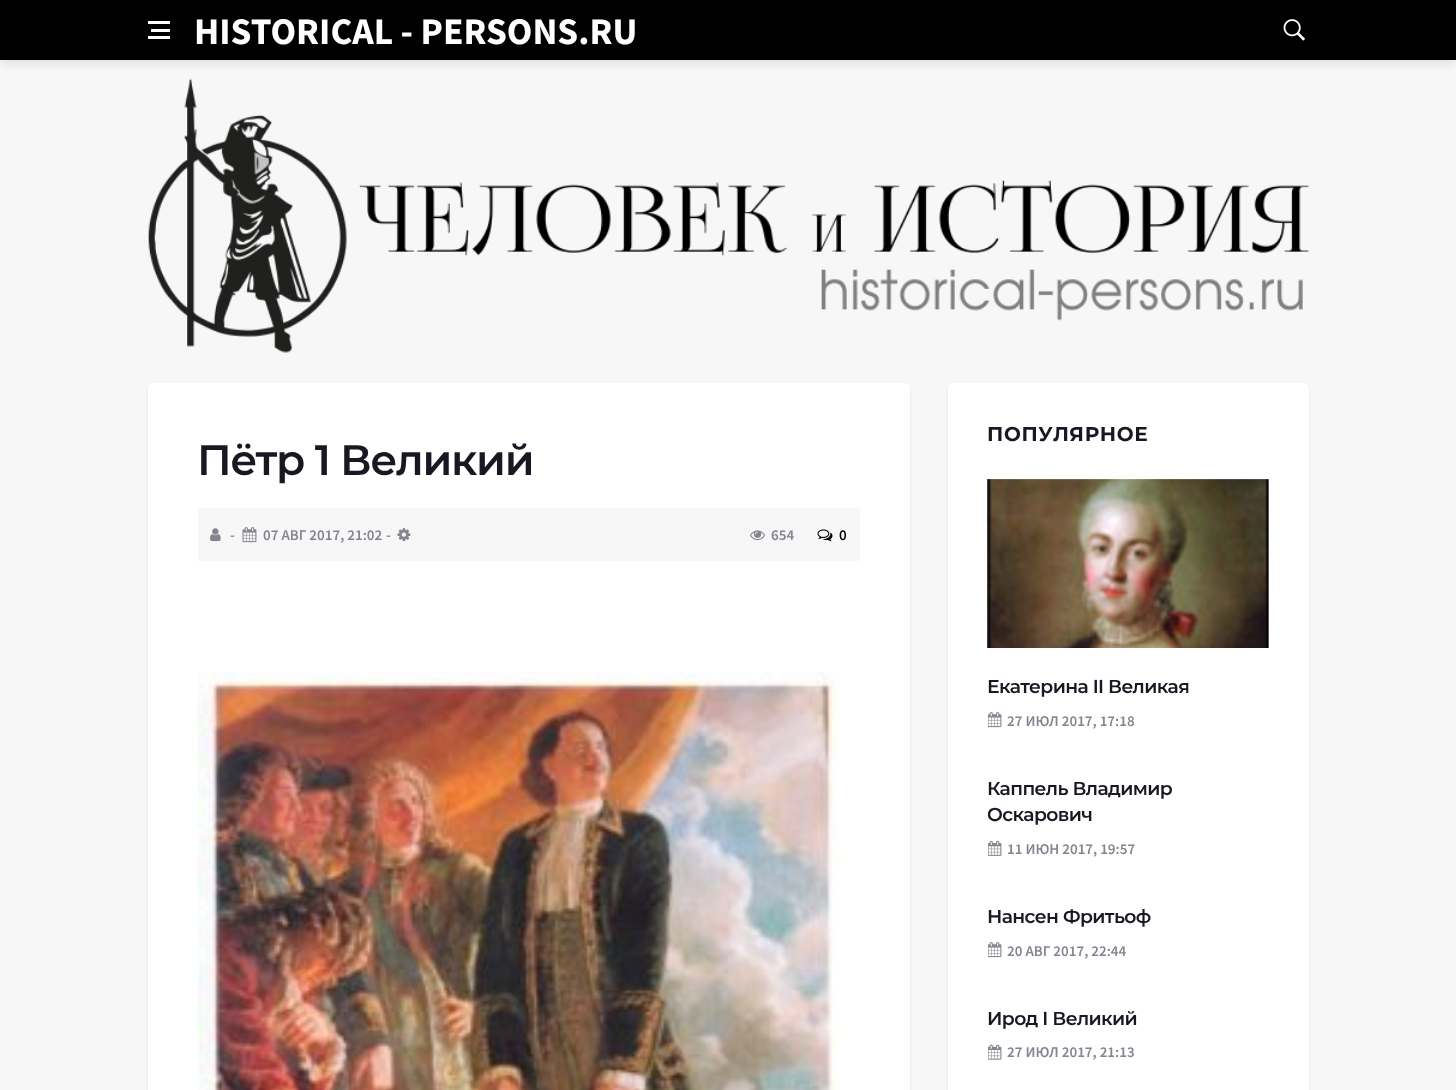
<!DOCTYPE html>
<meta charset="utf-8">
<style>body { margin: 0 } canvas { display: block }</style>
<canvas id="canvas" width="1456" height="1090"></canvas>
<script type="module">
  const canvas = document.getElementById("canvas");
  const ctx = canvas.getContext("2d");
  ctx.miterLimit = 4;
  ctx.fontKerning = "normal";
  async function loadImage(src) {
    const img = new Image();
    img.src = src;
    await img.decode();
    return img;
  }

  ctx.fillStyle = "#f7f7f7";
  ctx.fillRect(0, 0, 1456, 1090);
  ctx.drawImage(await loadImage("img2.png"), 148, 78, 1161, 275);
  ctx.fillStyle = "rgba(0, 0, 0, 0.1)";
  ctx.filter = "blur(6px)";
  ctx.beginPath();
  ctx.rect(0, 3, 1456, 60);
  ctx.fill();
  ctx.filter = "none";
  ctx.fillStyle = "#000000";
  ctx.fillRect(0, 0, 1456, 60);
  ctx.fillStyle = "#ffffff";
  ctx.fillRect(151, 29, 19, 3);
  ctx.fillRect(148, 21, 22, 3);
  ctx.fillRect(148, 36, 22, 3);
  ctx.font = "bold 37.5px Source Sans Pro";
  ctx.fillText("HISTORICAL - PERSONS.RU", 194, 44);
  ctx.drawImage(await loadImage("img1.png"), 1283, 19, 23, 22);
  ctx.fillStyle = "rgba(0, 0, 0, 0.1)";
  ctx.filter = "blur(1px)";
  ctx.beginPath();
  ctx.roundRect(148, 386, 762, 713, 6);
  ctx.fill();
  ctx.filter = "none";
  ctx.fillStyle = "#ffffff";
  ctx.beginPath();
  ctx.roundRect(148, 383, 762, 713, 6);
  ctx.fill();
  ctx.letterSpacing = "-1.25px";
  ctx.font = "600 42.5px Montserrat";
  ctx.fillStyle = "#171821";
  ctx.fillText("Пётр 1 Великий", 197, 475);
  ctx.fillStyle = "#f7f7f7";
  ctx.fillRect(198, 508, 662, 53);
  ctx.drawImage(await loadImage("img3.png"), 210, 528, 11, 14);
  ctx.letterSpacing = "0px";
  ctx.font = "600 15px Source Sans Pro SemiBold";
  ctx.fillStyle = "#83858f";
  ctx.fillText("-", 230, 540);
  ctx.drawImage(await loadImage("img4.png"), 242, 527, 15, 16);
  ctx.fillText("07 АВГ 2017, 21:02", 263, 540);
  ctx.fillText("-", 386, 540);
  ctx.drawImage(await loadImage("img5.png"), 397, 528, 14, 14);
  ctx.drawImage(await loadImage("img6.png"), 750, 530, 15, 11);
  ctx.fillText("654", 771, 540);
  ctx.drawImage(await loadImage("img7.png"), 817, 529, 16, 13);
  ctx.fillStyle = "#000000";
  ctx.fillText("0", 839, 540);
  ctx.drawImage(await loadImage("img8.png"), 197, 672, 644, 418);
  ctx.fillStyle = "rgba(0, 0, 0, 0.1)";
  ctx.filter = "blur(1px)";
  ctx.beginPath();
  ctx.roundRect(948, 386, 361, 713, 6);
  ctx.fill();
  ctx.filter = "none";
  ctx.fillStyle = "#ffffff";
  ctx.beginPath();
  ctx.roundRect(948, 383, 361, 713, 6);
  ctx.fill();
  ctx.letterSpacing = "0.75px";
  ctx.font = "bold 20px Montserrat";
  ctx.fillStyle = "#171821";
  ctx.fillText("ПОПУЛЯРНОЕ", 987, 441);
  ctx.fillStyle = "#f7f7f7";
  ctx.fillRect(988, 479, 281, 169);
  ctx.drawImage(await loadImage("img9.png"), 987, 479, 282, 169);
  ctx.letterSpacing = "-0.6px";
  ctx.font = "600 18.75px Montserrat";
  ctx.fillStyle = "#171821";
  ctx.fillText("Екатерина II Великая", 987, 693);
  ctx.drawImage(await loadImage("img10.png"), 988, 712, 14, 16);
  ctx.letterSpacing = "0px";
  ctx.font = "600 15px Source Sans Pro SemiBold";
  ctx.fillStyle = "#83858f";
  ctx.fillText("27 ИЮЛ 2017, 17:18", 1007, 726);
  ctx.letterSpacing = "-0.6px";
  ctx.font = "600 18.75px Montserrat";
  ctx.fillStyle = "#171821";
  ctx.fillText("Каппель Владимир", 987, 795);
  ctx.save();
  ctx.beginPath();
  ctx.rect(988, 771, 281, 90);
  ctx.clip();
  ctx.fillText("Оскарович", 987, 821);
  ctx.restore();
  ctx.drawImage(await loadImage("img11.png"), 988, 840, 14, 16);
  ctx.letterSpacing = "0px";
  ctx.font = "600 15px Source Sans Pro SemiBold";
  ctx.fillStyle = "#83858f";
  ctx.fillText("11 ИЮН 2017, 19:57", 1007, 854);
  ctx.letterSpacing = "-0.6px";
  ctx.font = "600 18.75px Montserrat";
  ctx.fillStyle = "#171821";
  ctx.fillText("Нансен Фритьоф", 987, 923);
  ctx.drawImage(await loadImage("img10.png"), 988, 942, 14, 16);
  ctx.letterSpacing = "0px";
  ctx.font = "600 15px Source Sans Pro SemiBold";
  ctx.fillStyle = "#83858f";
  ctx.fillText("20 АВГ 2017, 22:44", 1007, 956);
  ctx.letterSpacing = "-0.6px";
  ctx.font = "600 18.75px Montserrat";
  ctx.fillStyle = "#171821";
  ctx.fillText("Ирод I Великий", 987, 1025);
  ctx.drawImage(await loadImage("img12.png"), 988, 1044, 14, 16);
  ctx.letterSpacing = "0px";
  ctx.font = "600 15px Source Sans Pro SemiBold";
  ctx.fillStyle = "#83858f";
  ctx.fillText("27 ИЮЛ 2017, 21:13", 1007, 1057);
</script>
